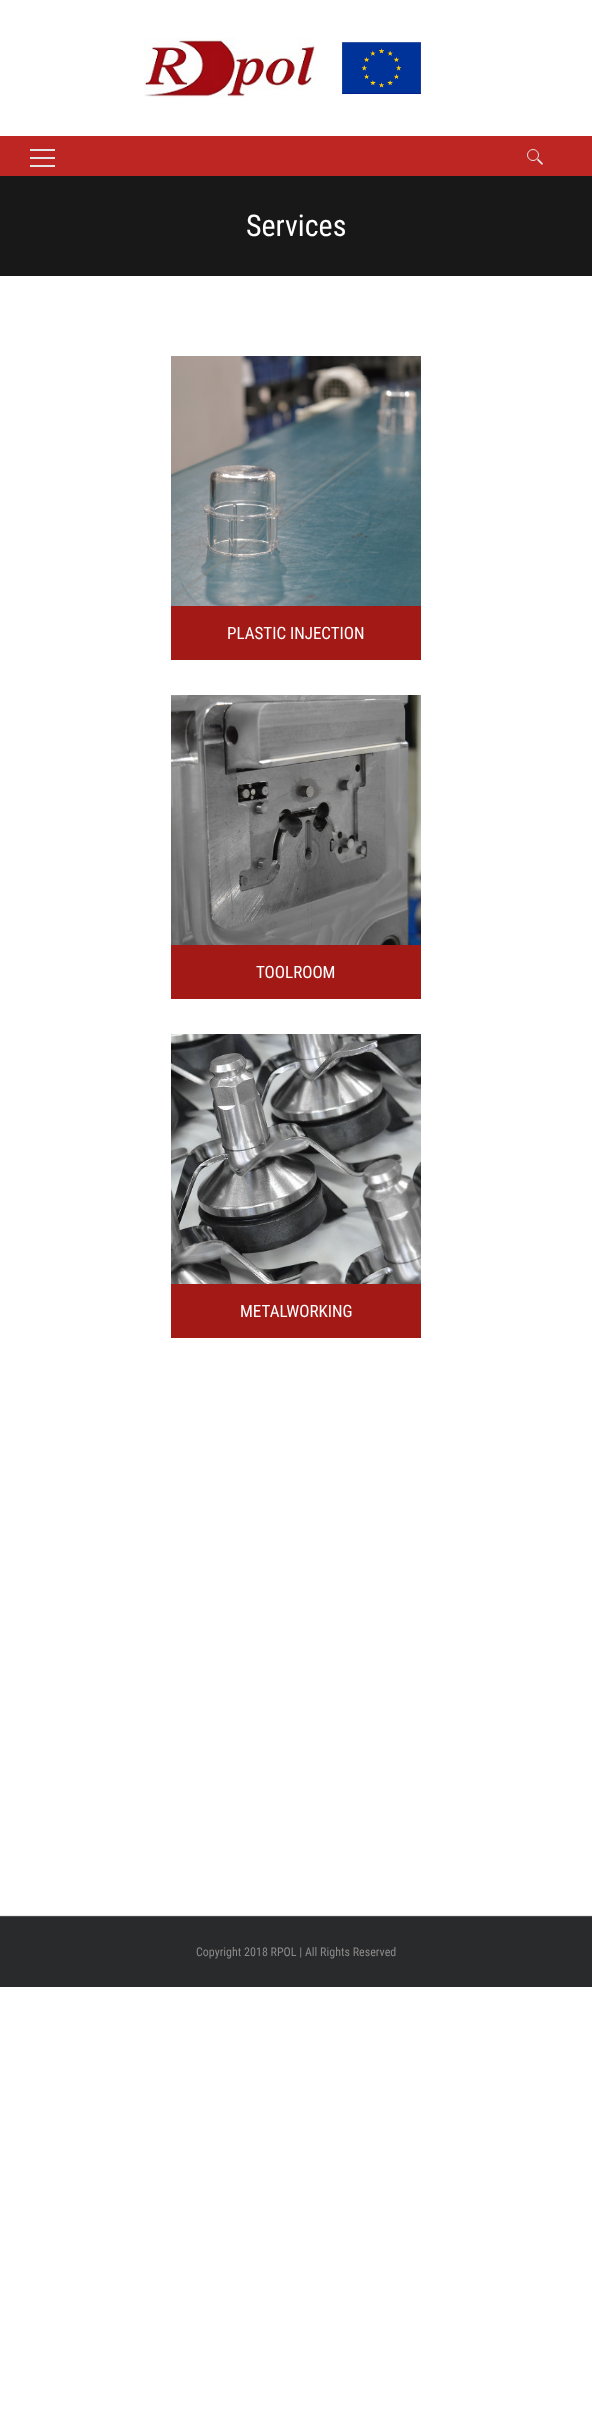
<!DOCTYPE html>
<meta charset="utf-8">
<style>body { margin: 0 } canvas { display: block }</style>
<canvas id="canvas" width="592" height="2427"></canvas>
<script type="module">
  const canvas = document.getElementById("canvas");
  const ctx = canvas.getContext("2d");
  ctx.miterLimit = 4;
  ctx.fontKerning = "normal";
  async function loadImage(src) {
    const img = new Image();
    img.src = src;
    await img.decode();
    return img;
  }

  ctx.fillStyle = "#ffffff";
  ctx.fillRect(0, 0, 592, 2427);
  ctx.drawImage(await loadImage("img1.png"), 144, 38, 172, 60);
  ctx.drawImage(await loadImage("img2.png"), 342, 42, 79, 52);
  ctx.fillStyle = "#bd2622";
  ctx.fillRect(0, 136, 592, 40);
  ctx.fillStyle = "#e5e5e5";
  ctx.fillRect(30, 149, 25, 2);
  ctx.fillRect(30, 157, 25, 2);
  ctx.fillRect(30, 165, 25, 2);
  ctx.beginPath();
  ctx.moveTo(537, 160);
  ctx.lineTo(538, 158.5);
  ctx.lineTo(543, 163.5);
  ctx.lineTo(542, 165);
  ctx.closePath();
  ctx.fill();
  ctx.beginPath();
  ctx.arc(533, 155, 5.5, 0, Math.PI * 2);
  ctx.strokeStyle = "#e5e5e5";
  ctx.stroke();
  ctx.fillStyle = "#181818";
  ctx.fillRect(0, 176, 592, 100);
  ctx.font = "30px Roboto Condensed";
  ctx.fillStyle = "#ffffff";
  ctx.fillText("Services", 246, 236);
  ctx.drawImage(await loadImage("img3.png"), 171, 356, 250, 250);
  ctx.fillStyle = "#a21916";
  ctx.fillRect(171, 606, 250, 54);
  ctx.font = "17px Roboto Condensed";
  ctx.fillStyle = "#ffffff";
  ctx.fillText("PLASTIC INJECTION", 227, 639);
  ctx.drawImage(await loadImage("img4.png"), 171, 695, 250, 250);
  ctx.fillStyle = "#a21916";
  ctx.fillRect(171, 945, 250, 54);
  ctx.fillStyle = "#ffffff";
  ctx.fillText("TOOLROOM", 256, 978);
  ctx.drawImage(await loadImage("img5.png"), 171, 1034, 250, 250);
  ctx.fillStyle = "#a21916";
  ctx.fillRect(171, 1284, 250, 54);
  ctx.fillStyle = "#ffffff";
  ctx.fillText("METALWORKING", 240, 1317);
  ctx.fillStyle = "#e9eaee";
  ctx.fillRect(0, 1915, 592, 1);
  ctx.fillStyle = "#282a2b";
  ctx.fillRect(0, 1917, 592, 70);
  ctx.fillStyle = "#4b4c4d";
  ctx.fillRect(0, 1916, 592, 1);
  ctx.font = "12px Roboto Condensed";
  ctx.fillStyle = "#8c8989";
  ctx.fillText("Copyright 2018 RPOL | All Rights Reserved", 196, 1956);
</script>
